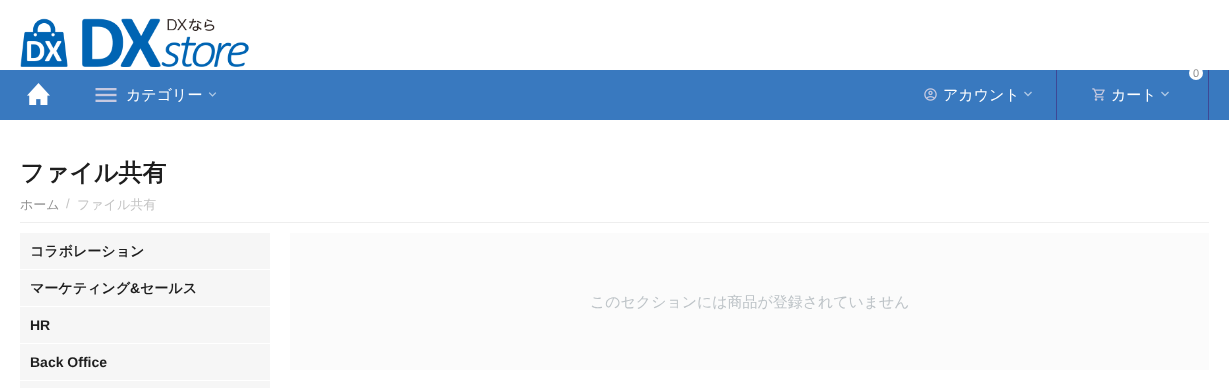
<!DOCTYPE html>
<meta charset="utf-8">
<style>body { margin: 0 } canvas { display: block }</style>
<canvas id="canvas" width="1229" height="388"></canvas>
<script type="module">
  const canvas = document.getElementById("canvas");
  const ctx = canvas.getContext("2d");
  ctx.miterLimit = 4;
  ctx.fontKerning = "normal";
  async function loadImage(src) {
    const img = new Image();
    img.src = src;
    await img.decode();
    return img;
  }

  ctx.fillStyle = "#ffffff";
  ctx.fillRect(0, 0, 1229, 388);
  ctx.drawImage(await loadImage("img1.png"), 20, 18, 229, 49);
  ctx.fillStyle = "#3979bf";
  ctx.fillRect(0, 70, 1229, 50);
  ctx.drawImage(await loadImage("img2.png"), 27, 83, 23, 22);
  ctx.drawImage(await loadImage("img3.png"), 95, 88, 22, 14);
  ctx.font = "500 15px WenQuanYi Zen Hei";
  ctx.fillStyle = "#ffffff";
  ctx.fillText("カテゴリー", 126, 100);
  ctx.drawImage(await loadImage("img4.png"), 208, 92, 9, 5);
  ctx.fillStyle = "#3e4895";
  ctx.fillRect(1056, 70, 1, 50);
  ctx.drawImage(await loadImage("img5.png"), 924, 88, 13, 13);
  ctx.fillStyle = "#ffffff";
  ctx.fillText("アカウント", 943, 100);
  ctx.drawImage(await loadImage("img6.png"), 1024, 91, 8, 6);
  ctx.fillStyle = "#3e4895";
  ctx.fillRect(1208, 70, 1, 50);
  ctx.fillStyle = "#ffffff";
  ctx.beginPath();
  ctx.arc(1196, 73, 7, 0, Math.PI * 2);
  ctx.fill();
  ctx.font = "11px Liberation Sans";
  ctx.fillStyle = "#919191";
  ctx.fillText("0", 1193, 77);
  ctx.drawImage(await loadImage("img7.png"), 1092, 88, 13, 13);
  ctx.font = "500 15px WenQuanYi Zen Hei";
  ctx.fillStyle = "#ffffff";
  ctx.fillText("カート", 1111, 100);
  ctx.drawImage(await loadImage("img6.png"), 1161, 91, 8, 6);
  ctx.font = "bold 24px WenQuanYi Zen Hei";
  ctx.fillStyle = "#1e1e1e";
  ctx.fillText("ファイル共有", 20, 181);
  ctx.fillStyle = "#eeeeee";
  ctx.fillRect(20, 222, 1189, 1);
  ctx.font = "500 13px WenQuanYi Zen Hei";
  ctx.fillStyle = "#919191";
  ctx.fillText("ホーム", 20, 209);
  ctx.font = "13px Liberation Sans";
  ctx.fillStyle = "#c4c4c4";
  ctx.fillText("/", 66, 208);
  ctx.font = "500 13px WenQuanYi Zen Hei";
  ctx.fillText("ファイル共有", 77, 209);
  ctx.fillStyle = "#f6f6f6";
  ctx.fillRect(20, 233, 250, 155);
  ctx.fillStyle = "#ffffff";
  ctx.fillRect(20, 269, 250, 1);
  ctx.font = "bold 14px WenQuanYi Zen Hei";
  ctx.fillStyle = "#1e1e1e";
  ctx.fillText("コラボレーション", 30, 256);
  ctx.fillStyle = "#ffffff";
  ctx.fillRect(20, 306, 250, 1);
  ctx.fillStyle = "#1e1e1e";
  ctx.fillText("マーケティング", 30, 293);
  ctx.font = "bold 14px Liberation Sans";
  ctx.fillText("&", 130, 293);
  ctx.font = "bold 14px WenQuanYi Zen Hei";
  ctx.fillText("セールス", 140, 293);
  ctx.fillStyle = "#ffffff";
  ctx.fillRect(20, 343, 250, 1);
  ctx.font = "bold 14px Liberation Sans";
  ctx.fillStyle = "#1e1e1e";
  ctx.fillText("HR", 30, 330);
  ctx.fillStyle = "#ffffff";
  ctx.fillRect(20, 380, 250, 1);
  ctx.fillStyle = "#1e1e1e";
  ctx.fillText("Back Office", 30, 367);
  ctx.fillStyle = "#fbfbfb";
  ctx.fillRect(290, 233, 919, 137);
  ctx.font = "500 14.95px WenQuanYi Zen Hei";
  ctx.fillStyle = "#bdc3c7";
  ctx.fillText("このセクションには商品が登録されていません", 590, 307);
</script>
